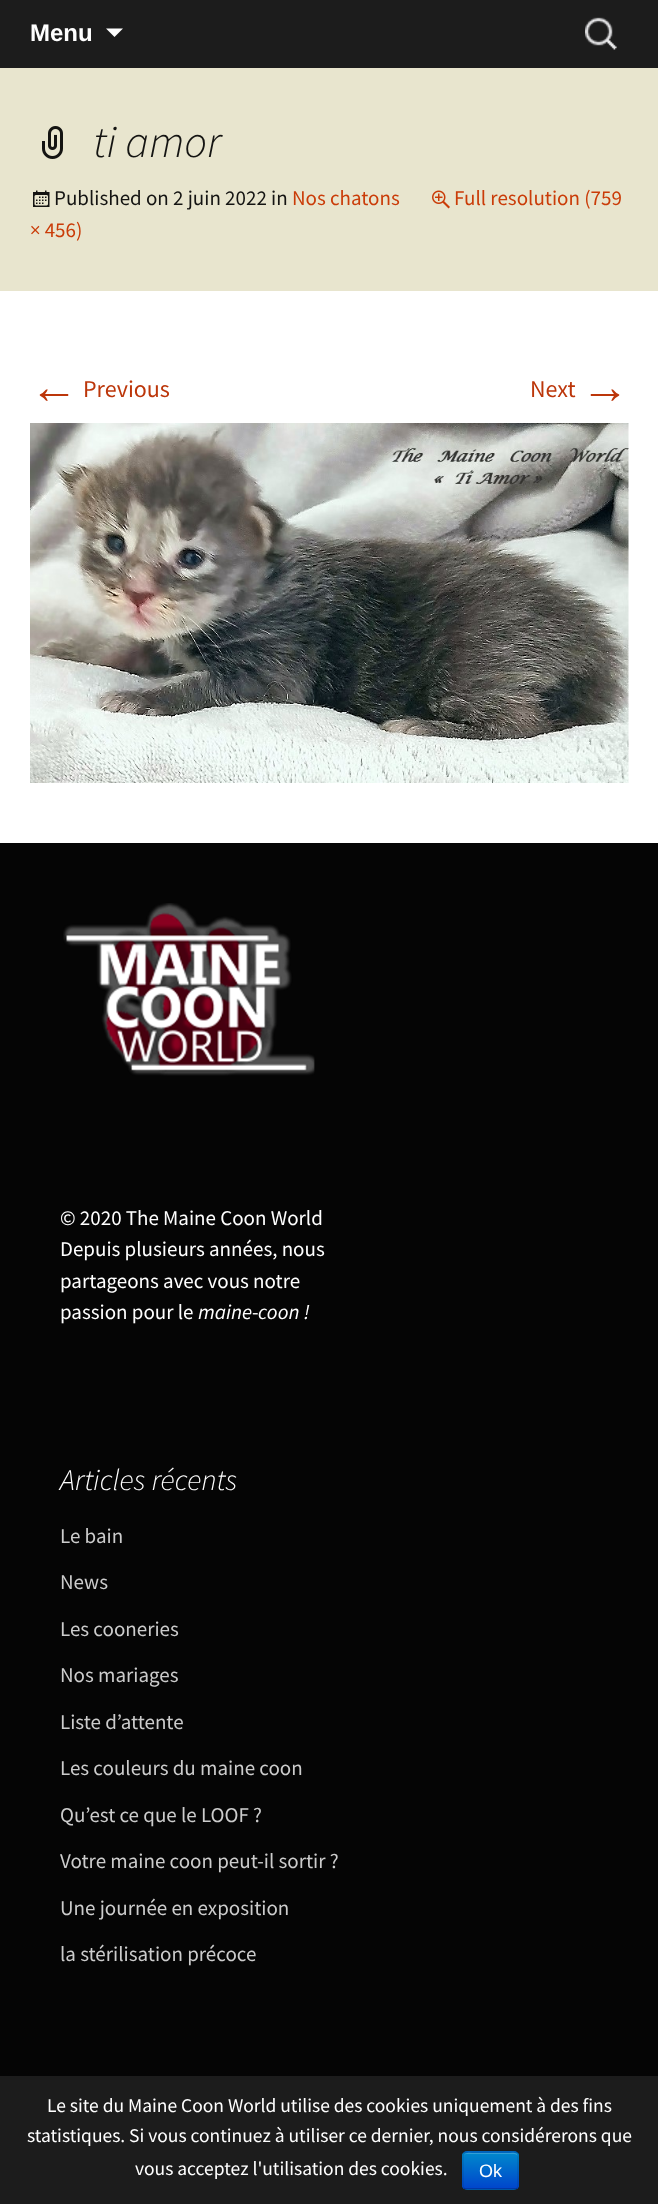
<!DOCTYPE html>
<meta charset="utf-8">
<style>body { margin: 0 } canvas { display: block }</style>
<canvas id="canvas" width="658" height="2204"></canvas>
<script type="module">
  const canvas = document.getElementById("canvas");
  const ctx = canvas.getContext("2d");
  ctx.miterLimit = 4;
  ctx.fontKerning = "normal";
  async function loadImage(src) {
    const img = new Image();
    img.src = src;
    await img.decode();
    return img;
  }
  let gradient;

  ctx.fillStyle = "#050505";
  ctx.fillRect(0, 0, 658, 2204);
  ctx.fillStyle = "#1c1c1c";
  ctx.fillRect(0, 0, 658, 68);
  ctx.font = "bold 24px Liberation Sans";
  ctx.fillStyle = "#ffffff";
  ctx.fillText("Menu", 30, 41);
  ctx.beginPath();
  ctx.moveTo(106, 28.5);
  ctx.lineTo(114.5, 37);
  ctx.lineTo(123, 28.5);
  ctx.closePath();
  ctx.fill();
  ctx.drawImage(await loadImage("img1.png"), 585, 17, 32, 33);
  ctx.fillStyle = "#e8e5ce";
  ctx.fillRect(0, 68, 658, 223);
  ctx.drawImage(await loadImage("img2.png"), 42, 126, 21, 33);
  ctx.font = "italic 300 45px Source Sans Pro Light";
  ctx.fillStyle = "#141412";
  ctx.fillText("ti amor", 93, 157);
  ctx.drawImage(await loadImage("img3.png"), 432, 190, 18, 19);
  ctx.font = "21px Source Sans Pro";
  ctx.fillStyle = "#ca3c08";
  ctx.fillText("Full resolution (759", 454, 205);
  ctx.fillText("× 456)", 30, 237);
  ctx.drawImage(await loadImage("img4.png"), 33, 190, 17, 17);
  ctx.fillStyle = "#141412";
  ctx.fillText("Published on 2 juin 2022 in", 54, 205);
  ctx.fillStyle = "#ca3c08";
  ctx.fillText("Nos chatons", 292, 205);
  ctx.fillStyle = "#ffffff";
  ctx.fillRect(0, 291, 658, 552);
  ctx.font = "48px Liberation Sans";
  ctx.fillStyle = "#bc360a";
  ctx.fillText("←", 30, 403);
  ctx.font = "24px Source Sans Pro";
  ctx.fillText("Previous", 83, 397);
  ctx.fillText("Next", 530, 397);
  ctx.font = "48px Liberation Sans";
  ctx.fillText("→", 581, 403);
  ctx.drawImage(await loadImage("img5.png"), 30, 423, 599, 360);
  ctx.drawImage(await loadImage("img6.png"), 63, 903, 252, 173);
  ctx.font = "21px Source Sans Pro";
  ctx.fillStyle = "#ffffff";
  ctx.fillText("© 2020 The Maine Coon World", 60, 1225);
  ctx.fillText("Depuis plusieurs années, nous", 60, 1256);
  ctx.fillText("partageons avec vous notre", 60, 1288);
  ctx.fillText("passion pour le", 60, 1319);
  ctx.font = "italic 21px Source Sans Pro";
  ctx.fillText("maine", 198, 1319);
  ctx.font = "21px Source Sans Pro";
  ctx.fillText("-", 252, 1319);
  ctx.font = "italic 21px Source Sans Pro";
  ctx.fillText("coon !", 258, 1319);
  ctx.font = "italic 300 30px Source Sans Pro Light";
  ctx.fillText("Articles récents", 60, 1490);
  ctx.font = "21px Source Sans Pro";
  ctx.fillStyle = "#cccccc";
  ctx.fillText("Le bain", 60, 1543);
  ctx.fillText("News", 60, 1589);
  ctx.fillText("Les cooneries", 60, 1636);
  ctx.fillText("Nos mariages", 60, 1682);
  ctx.fillText("Liste d’attente", 60, 1729);
  ctx.fillText("Les couleurs du maine coon", 60, 1775);
  ctx.fillText("Qu’est ce que le LOOF ?", 60, 1822);
  ctx.fillText("Votre maine coon peut-il sortir ?", 60, 1868);
  ctx.fillText("Une journée en exposition", 60, 1915);
  ctx.fillText("la stérilisation précoce", 60, 1961);
  ctx.fillStyle = "#1c1c1c";
  ctx.fillRect(0, 2076, 658, 128);
  ctx.font = "19.5px Source Sans Pro";
  ctx.fillStyle = "#ffffff";
  ctx.fillText("Le site du Maine Coon World utilise des cookies uniquement à des fins", 47, 2112);
  ctx.fillText("statistiques. Si vous continuez à utiliser ce dernier, nous considérerons que", 27, 2142);
  ctx.fillText("vous acceptez l'utilisation des cookies.", 135, 2175);
  ctx.fillStyle = "#006dcc";
  ctx.beginPath();
  ctx.roundRect(462, 2151, 57, 39, 5);
  ctx.fill();
  ctx.save();
  ctx.beginPath();
  ctx.roundRect(462, 2151, 57, 39, 5);
  ctx.clip();
  gradient = ctx.createLinearGradient(491, 2153, 491, 2189);
  gradient.addColorStop(0, "#0088cc");
  gradient.addColorStop(1, "#0044cc");
  ctx.fillStyle = gradient;
  ctx.fillRect(462, 2153, 57, 36);
  ctx.restore();
  ctx.fillStyle = "#339fd6";
  ctx.beginPath();
  ctx.moveTo(466, 2154);
  ctx.lineTo(514, 2154);
  ctx.bezierCurveTo(516, 2154, 518, 2155, 518, 2157);
  ctx.bezierCurveTo(518, 2151, 511, 2153, 507, 2153);
  ctx.lineTo(475, 2153);
  ctx.bezierCurveTo(471, 2153, 464, 2151, 464, 2157);
  ctx.bezierCurveTo(464, 2155, 465, 2154, 466, 2154);
  ctx.closePath();
  ctx.fill();
  ctx.beginPath();
  ctx.moveTo(517, 2188);
  ctx.bezierCurveTo(516.5, 2189, 515.5, 2189, 514.5, 2189);
  ctx.lineTo(466.5, 2189);
  ctx.bezierCurveTo(465.5, 2189, 464.5, 2189, 464, 2188);
  ctx.strokeStyle = "rgba(0, 0, 0, 0.25)";
  ctx.lineWidth = 1.5;
  ctx.stroke();
  ctx.beginPath();
  ctx.moveTo(464, 2188);
  ctx.bezierCurveTo(463, 2187.5, 463, 2186.5, 463, 2185.5);
  ctx.lineTo(463, 2155.5);
  ctx.bezierCurveTo(463, 2154.5, 463, 2153.5, 464, 2153);
  ctx.bezierCurveTo(464.5, 2152, 465.5, 2152, 466.5, 2152);
  ctx.lineTo(514.5, 2152);
  ctx.bezierCurveTo(515.5, 2152, 516.5, 2152, 517, 2153);
  ctx.bezierCurveTo(518, 2153.5, 518, 2154.5, 518, 2155.5);
  ctx.lineTo(518, 2185.5);
  ctx.bezierCurveTo(518, 2186.5, 518, 2187.5, 517, 2188);
  ctx.strokeStyle = "rgba(0, 0, 0, 0.1)";
  ctx.stroke();
  ctx.font = "18px Liberation Sans";
  ctx.fillStyle = "#ffffff";
  ctx.fillText("Ok", 479, 2177);
</script>
